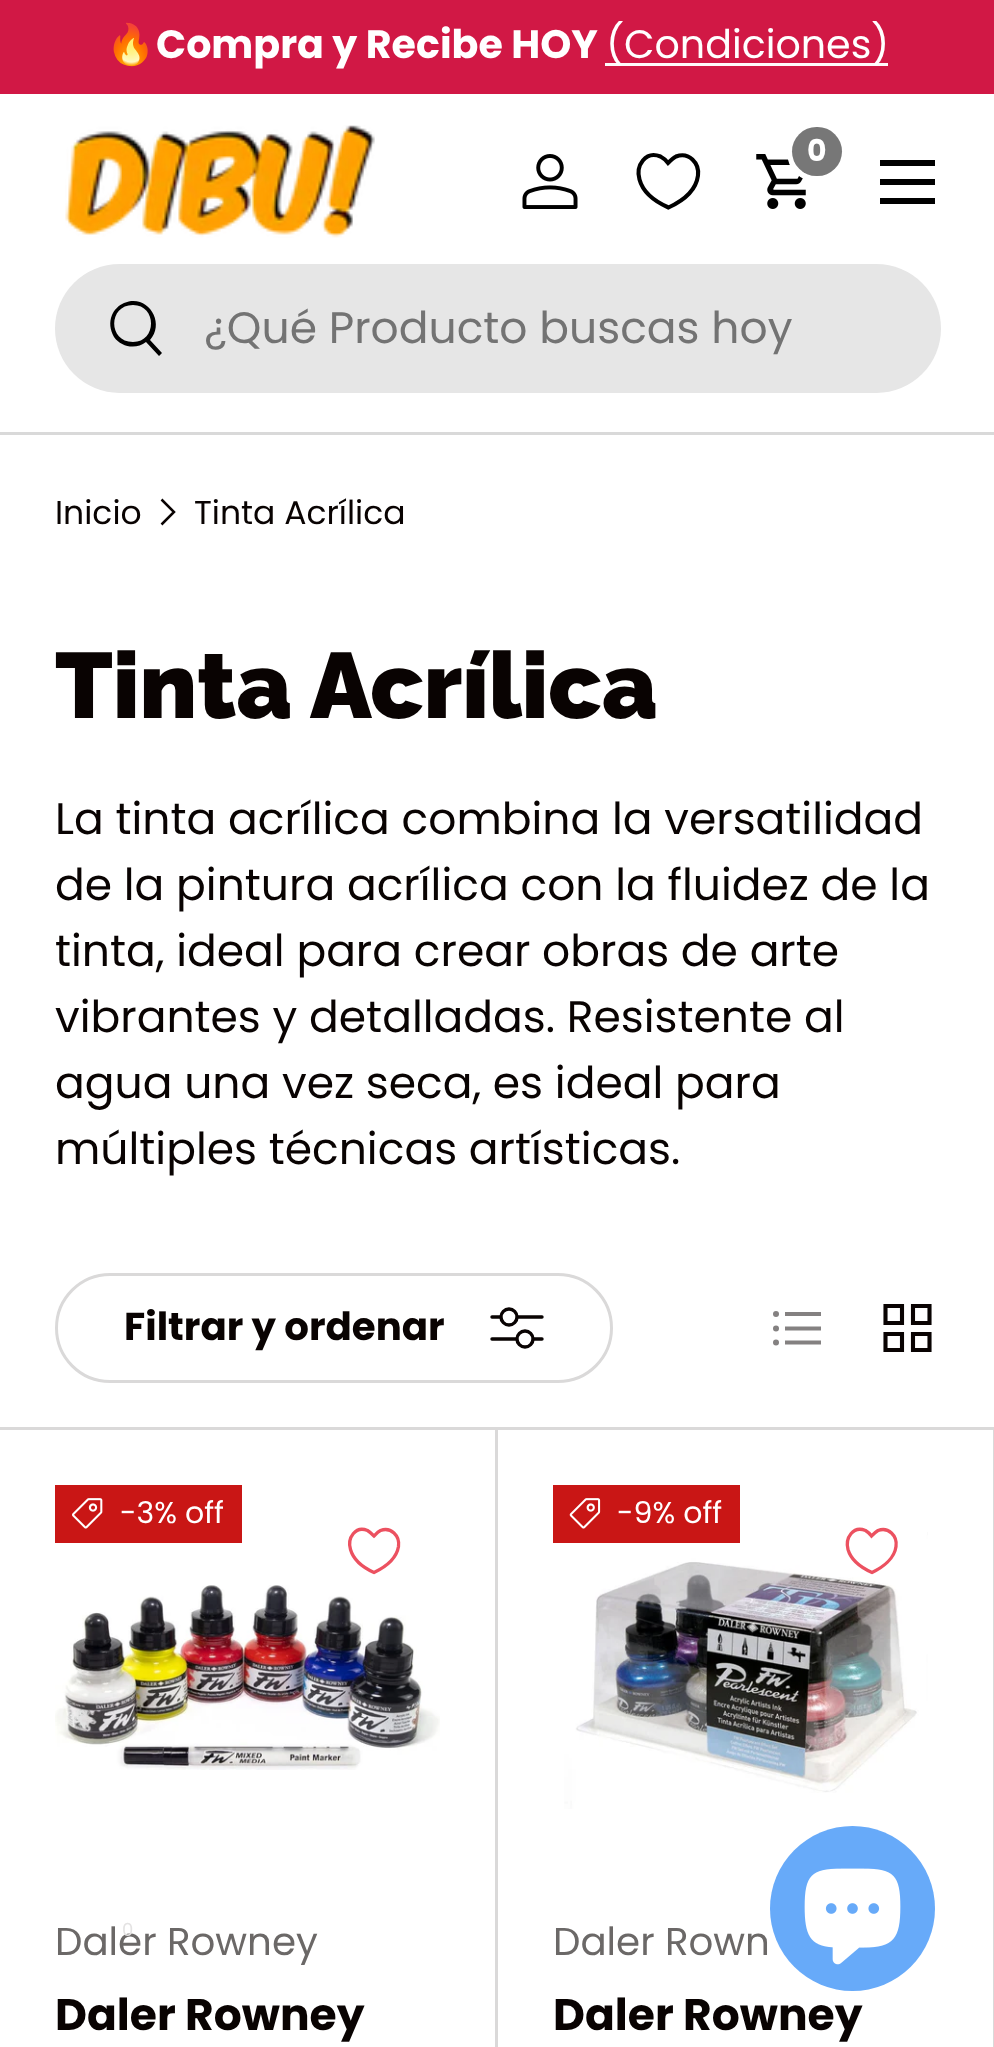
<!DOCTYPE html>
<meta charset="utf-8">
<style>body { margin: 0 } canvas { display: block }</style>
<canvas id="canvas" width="994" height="2047"></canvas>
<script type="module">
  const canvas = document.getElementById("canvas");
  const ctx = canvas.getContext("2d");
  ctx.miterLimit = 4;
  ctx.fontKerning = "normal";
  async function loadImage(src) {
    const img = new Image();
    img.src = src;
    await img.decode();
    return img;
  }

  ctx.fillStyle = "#ffffff";
  ctx.fillRect(0, 0, 994, 2047);
  ctx.fillStyle = "#d11845";
  ctx.fillRect(0, 0, 994, 94);
  ctx.font = "39.6px Noto Color Emoji";
  ctx.fillStyle = "#ffffff";
  ctx.fillText("🔥", 106, 58);
  ctx.font = "bold 39.6px Poppins";
  ctx.fillText("Compra y Recibe HOY", 156, 58);
  ctx.fillStyle = "#fffafb";
  ctx.fillRect(605, 63, 283, 3);
  ctx.font = "39.6px Poppins";
  ctx.fillStyle = "#ffffff";
  ctx.fillText("(Condiciones)", 606, 58);
  ctx.fillStyle = "#d9d9d9";
  ctx.fillRect(0, 432, 994, 3);
  ctx.drawImage(await loadImage("img1.png"), 65, 125, 310, 113);
  ctx.drawImage(await loadImage("img2.png"), 756, 154, 50, 55);
  ctx.beginPath();
  ctx.roundRect(790, 124, 54, 55, 27);
  ctx.strokeStyle = "#ffffff";
  ctx.lineWidth = 6;
  ctx.stroke();
  ctx.fillStyle = "#777777";
  ctx.beginPath();
  ctx.roundRect(792, 127, 50, 49, 24.5);
  ctx.fill();
  ctx.font = "bold 30px Poppins";
  ctx.fillStyle = "#ffffff";
  ctx.fillText("0", 807, 161);
  ctx.drawImage(await loadImage("img3.png"), 522, 154, 56, 55);
  ctx.beginPath();
  ctx.moveTo(668.5, 207.5);
  ctx.bezierCurveTo(656, 202, 643, 192.5, 639.5, 179.5);
  ctx.bezierCurveTo(635.5, 165.5, 645.5, 150.5, 660.5, 156.5);
  ctx.bezierCurveTo(663.5, 158, 666, 160.5, 668, 163);
  ctx.bezierCurveTo(670.5, 160.5, 673, 158, 676, 156.5);
  ctx.bezierCurveTo(689, 151.5, 699.5, 163, 698, 175.5);
  ctx.bezierCurveTo(696, 191, 681.5, 201.5, 668.5, 207.5);
  ctx.closePath();
  ctx.strokeStyle = "#000000";
  ctx.lineWidth = 4.1;
  ctx.stroke();
  ctx.fillStyle = "#000000";
  ctx.fillRect(880, 160, 55, 6);
  ctx.fillRect(880, 198, 55, 6);
  ctx.fillRect(880, 179, 55, 6);
  ctx.fillStyle = "#e6e6e6";
  ctx.beginPath();
  ctx.roundRect(55, 264, 886, 129, 64.5);
  ctx.fill();
  ctx.fillStyle = "#000000";
  ctx.beginPath();
  ctx.moveTo(150, 340);
  ctx.lineTo(162, 353);
  ctx.lineTo(159, 356);
  ctx.lineTo(146, 342);
  ctx.bezierCurveTo(136, 350, 121, 347, 114, 337);
  ctx.bezierCurveTo(110, 330, 109, 322, 112, 315);
  ctx.bezierCurveTo(114, 310, 119, 305, 124, 303);
  ctx.bezierCurveTo(147, 293, 166, 322, 150, 340);
  ctx.closePath();
  ctx.moveTo(133, 342);
  ctx.bezierCurveTo(157, 342, 157, 305, 133, 305);
  ctx.bezierCurveTo(108, 305, 108, 342, 133, 342);
  ctx.closePath();
  ctx.fill();
  ctx.font = "44px Poppins";
  ctx.fillStyle = "#737373";
  ctx.fillText("¿Qué Producto buscas hoy", 204, 343);
  ctx.font = "33px Poppins";
  ctx.fillStyle = "#090302";
  ctx.fillText("Inicio", 55, 524);
  ctx.beginPath();
  ctx.moveTo(161.5, 499.5);
  ctx.lineTo(174, 512);
  ctx.lineTo(161.5, 524.5);
  ctx.strokeStyle = "#090302";
  ctx.lineWidth = 2.5;
  ctx.stroke();
  ctx.fillText("Tinta Acrílica", 194, 524);
  ctx.font = "900 92.75px Raleway";
  ctx.fillText("Tinta Acrílica", 55, 718);
  ctx.font = "44px Poppins";
  ctx.fillText("La tinta acrílica combina la versatilidad", 55, 834);
  ctx.fillText("de la pintura acrílica con la fluidez de la", 55, 900);
  ctx.fillText("tinta, ideal para crear obras de arte", 55, 966);
  ctx.fillText("vibrantes y detalladas. Resistente al", 55, 1032);
  ctx.fillText("agua una vez seca, es ideal para", 55, 1098);
  ctx.fillText("múltiples técnicas artísticas.", 55, 1164);
  ctx.beginPath();
  ctx.roundRect(56.5, 1274.5, 555, 107, 53.5);
  ctx.strokeStyle = "#dad9d9";
  ctx.lineWidth = 3;
  ctx.stroke();
  ctx.font = "bold 38.75px Poppins";
  ctx.fillText("Filtrar y ordenar", 124, 1340);
  ctx.beginPath();
  ctx.moveTo(492, 1317);
  ctx.lineTo(542, 1317);
  ctx.moveTo(492, 1339);
  ctx.lineTo(542, 1339);
  ctx.strokeStyle = "#090302";
  ctx.lineWidth = 3.4;
  ctx.lineCap = "round";
  ctx.lineJoin = "round";
  ctx.stroke();
  ctx.fillStyle = "#ffffff";
  ctx.beginPath();
  ctx.arc(509, 1317, 8, 0, Math.PI * 2);
  ctx.fill();
  ctx.stroke();
  ctx.beginPath();
  ctx.arc(525, 1339, 8, 0, Math.PI * 2);
  ctx.fill();
  ctx.stroke();
  ctx.fillStyle = "#848181";
  ctx.beginPath();
  ctx.arc(776, 1314, 3, 0, Math.PI * 2);
  ctx.fill();
  ctx.fillRect(785, 1312, 36, 4);
  ctx.beginPath();
  ctx.arc(776, 1328.5, 3, 0, Math.PI * 2);
  ctx.fill();
  ctx.beginPath();
  ctx.moveTo(785, 1328.5);
  ctx.lineTo(821, 1328.5);
  ctx.strokeStyle = "#848181";
  ctx.lineWidth = 4.1;
  ctx.lineCap = "butt";
  ctx.lineJoin = "miter";
  ctx.stroke();
  ctx.beginPath();
  ctx.arc(776, 1342.5, 3, 0, Math.PI * 2);
  ctx.fill();
  ctx.beginPath();
  ctx.moveTo(785, 1342.5);
  ctx.lineTo(821, 1342.5);
  ctx.stroke();
  ctx.beginPath();
  ctx.moveTo(885.5, 1306);
  ctx.lineTo(902, 1306);
  ctx.lineTo(902, 1323);
  ctx.lineTo(885.5, 1323);
  ctx.closePath();
  ctx.moveTo(913, 1306);
  ctx.lineTo(929.5, 1306);
  ctx.lineTo(929.5, 1323);
  ctx.lineTo(913, 1323);
  ctx.closePath();
  ctx.moveTo(885.5, 1334);
  ctx.lineTo(902, 1334);
  ctx.lineTo(902, 1350);
  ctx.lineTo(885.5, 1350);
  ctx.closePath();
  ctx.moveTo(913, 1334);
  ctx.lineTo(929.5, 1334);
  ctx.lineTo(929.5, 1350);
  ctx.lineTo(913, 1350);
  ctx.closePath();
  ctx.strokeStyle = "#090302";
  ctx.stroke();
  ctx.fillStyle = "#dad9d9";
  ctx.fillRect(0, 1427, 994, 3);
  ctx.beginPath();
  ctx.moveTo(498, 1430);
  ctx.lineTo(498, 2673);
  ctx.lineTo(495, 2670);
  ctx.lineTo(495, 1430);
  ctx.closePath();
  ctx.fill();
  ctx.fillStyle = "#c91615";
  ctx.fillRect(55, 1485, 187, 58);
  ctx.drawImage(await loadImage("img4.png"), 72, 1498, 31, 31);
  ctx.font = "30px Poppins";
  ctx.fillStyle = "#ffffff";
  ctx.fillText("-3% off", 120, 1523);
  ctx.drawImage(await loadImage("img5.png"), 55, 1585, 385, 185);
  ctx.font = "38.75px Poppins";
  ctx.fillStyle = "#6b6867";
  ctx.fillText("Daler Rowney", 55, 1955);
  ctx.font = "bold 44px Poppins";
  ctx.fillStyle = "#090302";
  ctx.fillText("Daler Rowney", 55, 2030);
  ctx.beginPath();
  ctx.moveTo(374, 1572.5);
  ctx.bezierCurveTo(364, 1568, 353.5, 1560, 350.5, 1549.5);
  ctx.bezierCurveTo(347, 1538, 355.5, 1525.5, 367.5, 1530.5);
  ctx.bezierCurveTo(370, 1532, 372, 1534, 374, 1536);
  ctx.bezierCurveTo(376, 1534, 377.5, 1532, 380.5, 1530.5);
  ctx.bezierCurveTo(391, 1526.5, 400, 1536, 398.5, 1546.5);
  ctx.bezierCurveTo(396.5, 1558.5, 384.5, 1567.5, 374, 1572.5);
  ctx.closePath();
  ctx.strokeStyle = "#ec5160";
  ctx.lineWidth = 3.3;
  ctx.stroke();
  ctx.fillStyle = "#dad9d9";
  ctx.beginPath();
  ctx.moveTo(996, 1430);
  ctx.lineTo(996, 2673);
  ctx.lineTo(993, 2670);
  ctx.lineTo(993, 1430);
  ctx.closePath();
  ctx.fill();
  ctx.drawImage(await loadImage("img7.png"), 564, 1532, 364, 277);
  ctx.fillStyle = "#c91615";
  ctx.fillRect(553, 1485, 187, 58);
  ctx.drawImage(await loadImage("img6.png"), 569, 1498, 32, 31);
  ctx.font = "30px Poppins";
  ctx.fillStyle = "#ffffff";
  ctx.fillText("-9% off", 617, 1523);
  ctx.font = "38.75px Poppins";
  ctx.fillStyle = "#6b6867";
  ctx.fillText("Daler Rown", 553, 1955);
  ctx.font = "bold 44px Poppins";
  ctx.fillStyle = "#090302";
  ctx.fillText("Daler Rowney", 553, 2030);
  ctx.beginPath();
  ctx.moveTo(872, 1572.5);
  ctx.bezierCurveTo(862, 1568, 851, 1560, 848, 1549.5);
  ctx.bezierCurveTo(845, 1538, 853, 1525.5, 865.5, 1530.5);
  ctx.bezierCurveTo(868, 1532, 870, 1534, 871.5, 1536);
  ctx.bezierCurveTo(873.5, 1534, 875.5, 1532, 878, 1530.5);
  ctx.bezierCurveTo(888.5, 1526.5, 897.5, 1536, 896, 1546.5);
  ctx.bezierCurveTo(894.5, 1558.5, 882.5, 1567.5, 872, 1572.5);
  ctx.closePath();
  ctx.stroke();
  ctx.font = "18px Poppins";
  ctx.fillStyle = "#e4e3e3";
  ctx.fillText("0", 122, 1936);
  ctx.fillStyle = "#67aaf9";
  ctx.beginPath();
  ctx.arc(852.5, 1908.5, 82.5, 0, Math.PI * 2);
  ctx.fill();
  ctx.drawImage(await loadImage("img8.png"), 804, 1868, 97, 97);
</script>
